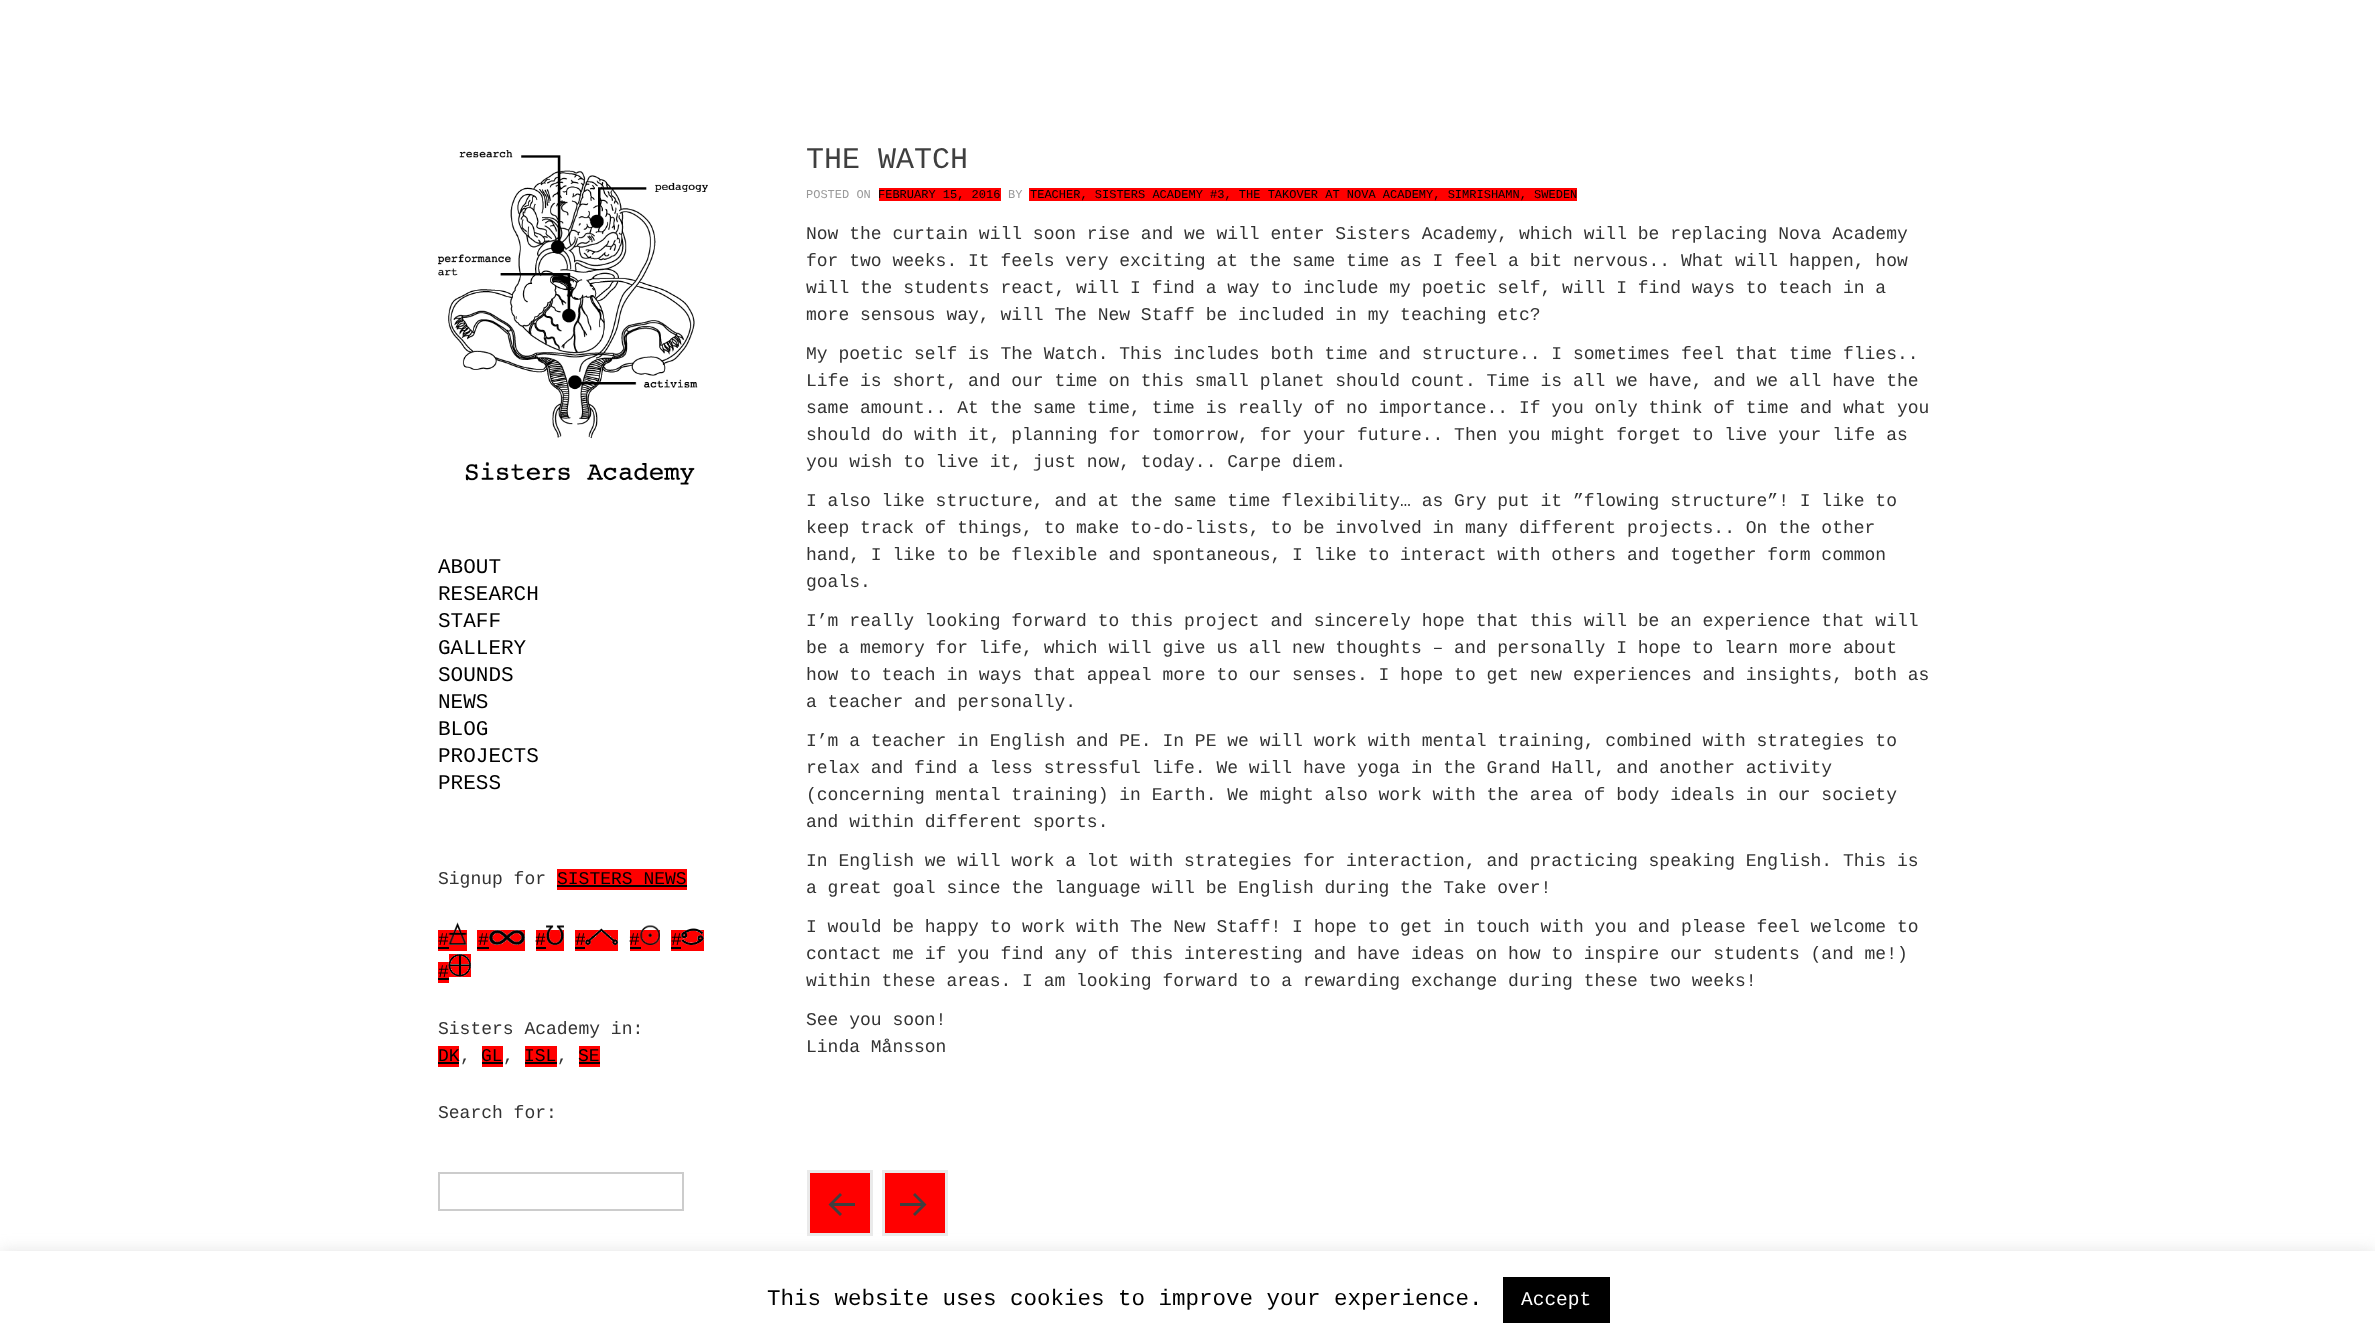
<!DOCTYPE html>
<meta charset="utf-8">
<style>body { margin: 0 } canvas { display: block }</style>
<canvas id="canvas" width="2375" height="1341"></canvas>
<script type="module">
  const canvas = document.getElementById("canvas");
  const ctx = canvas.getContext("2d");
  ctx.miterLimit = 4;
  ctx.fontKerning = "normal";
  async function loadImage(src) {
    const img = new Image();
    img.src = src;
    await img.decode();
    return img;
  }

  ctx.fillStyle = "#ffffff";
  ctx.fillRect(0, 0, 2375, 1341);
  ctx.drawImage(await loadImage("img1.png"), 438, 150, 270, 335);
  ctx.font = "21px Liberation Mono";
  ctx.fillStyle = "#000000";
  ctx.fillText("ABOUT", 438, 573);
  ctx.fillText("RESEARCH", 438, 600);
  ctx.fillText("STAFF", 438, 627);
  ctx.fillText("GALLERY", 438, 654);
  ctx.fillText("SOUNDS", 438, 681);
  ctx.fillText("NEWS", 438, 708);
  ctx.fillText("BLOG", 438, 735);
  ctx.fillText("PROJECTS", 438, 762);
  ctx.fillText("PRESS", 438, 789);
  ctx.font = "18px Liberation Mono";
  ctx.fillStyle = "#333333";
  ctx.fillText("Signup for", 438, 884);
  ctx.fillStyle = "#ff0000";
  ctx.fillRect(557, 869, 130, 21);
  ctx.fillStyle = "#000000";
  ctx.fillText("SISTERS NEWS", 557, 884);
  ctx.fillRect(557, 885, 130, 2);
  ctx.fillStyle = "#ff0000";
  ctx.fillRect(438, 930, 29, 21);
  ctx.fillStyle = "#000000";
  ctx.fillText("#", 438, 945);
  ctx.drawImage(await loadImage("img2.png"), 448, 922, 19, 23);
  ctx.fillStyle = "#ff0000";
  ctx.fillRect(477, 930, 48, 21);
  ctx.drawImage(await loadImage("img3.png"), 489, 930, 36, 15);
  ctx.fillRect(536, 930, 28, 21);
  ctx.drawImage(await loadImage("img4.png"), 546, 925, 18, 20);
  ctx.fillRect(575, 930, 10, 21);
  ctx.fillStyle = "#000000";
  ctx.fillText("#", 575, 945);
  ctx.fillStyle = "#ff0000";
  ctx.fillRect(585, 930, 33, 21);
  ctx.drawImage(await loadImage("img5.png"), 585, 928, 33, 17);
  ctx.fillRect(630, 930, 30, 21);
  ctx.drawImage(await loadImage("img6.png"), 640, 925, 20, 20);
  ctx.fillRect(671, 930, 33, 21);
  ctx.drawImage(await loadImage("img7.png"), 681, 928, 23, 17);
  ctx.fillStyle = "#000000";
  ctx.fillRect(438, 947, 11, 2);
  ctx.fillText("#", 478, 945);
  ctx.fillRect(477, 947, 12, 2);
  ctx.fillText("#", 535, 945);
  ctx.fillRect(536, 947, 10, 2);
  ctx.fillRect(575, 947, 10, 2);
  ctx.fillText("#", 629, 945);
  ctx.fillRect(630, 947, 11, 2);
  ctx.fillText("#", 671, 945);
  ctx.fillRect(671, 947, 10, 2);
  ctx.fillStyle = "#ff0000";
  ctx.fillRect(438, 962, 11, 21);
  ctx.fillStyle = "#000000";
  ctx.fillText("#", 438, 977);
  ctx.fillStyle = "#ff0000";
  ctx.fillRect(449, 954, 22, 23);
  ctx.fillStyle = "#000000";
  ctx.fillRect(438, 978, 11, 2);
  ctx.drawImage(await loadImage("img8.png"), 448, 954, 23, 23);
  ctx.fillStyle = "#333333";
  ctx.fillText("Sisters Academy in:", 438, 1034);
  ctx.fillStyle = "#ff0000";
  ctx.fillRect(438, 1046, 21, 21);
  ctx.fillStyle = "#000000";
  ctx.fillText("DK", 438, 1061);
  ctx.fillRect(438, 1062, 21, 2);
  ctx.fillStyle = "#333333";
  ctx.fillText(",", 460, 1061);
  ctx.fillStyle = "#ff0000";
  ctx.fillRect(482, 1046, 21, 21);
  ctx.fillStyle = "#000000";
  ctx.fillText("GL", 481, 1061);
  ctx.fillRect(482, 1062, 21, 2);
  ctx.fillStyle = "#333333";
  ctx.fillText(",", 503, 1061);
  ctx.fillStyle = "#ff0000";
  ctx.fillRect(525, 1046, 32, 21);
  ctx.fillStyle = "#000000";
  ctx.fillText("ISL", 524, 1061);
  ctx.fillRect(525, 1062, 32, 2);
  ctx.fillStyle = "#333333";
  ctx.fillText(",", 557, 1061);
  ctx.fillStyle = "#ff0000";
  ctx.fillRect(579, 1046, 21, 21);
  ctx.fillStyle = "#000000";
  ctx.fillText("SE", 578, 1061);
  ctx.fillRect(579, 1062, 21, 2);
  ctx.fillStyle = "#333333";
  ctx.fillText("Search for:", 438, 1118);
  ctx.strokeStyle = "#cccccc";
  ctx.lineWidth = 2;
  ctx.strokeRect(439, 1173, 244, 37);
  ctx.font = "30px Liberation Mono";
  ctx.fillStyle = "#3f3f3f";
  ctx.fillText("THE WATCH", 806, 168);
  ctx.font = "12px Liberation Mono";
  ctx.fillStyle = "#999999";
  ctx.fillText("POSTED ON", 806, 198);
  ctx.fillStyle = "#ff0000";
  ctx.fillRect(879, 188, 122, 13);
  ctx.fillStyle = "#000000";
  ctx.fillText("FEBRUARY 15, 2016", 878, 198);
  ctx.fillStyle = "#999999";
  ctx.fillText("BY", 1008, 198);
  ctx.fillStyle = "#ff0000";
  ctx.fillRect(1029, 188, 548, 13);
  ctx.fillStyle = "#000000";
  ctx.fillText("TEACHER, SISTERS ACADEMY #3, THE TAKOVER AT NOVA ACADEMY, SIMRISHAMN, SWEDEN", 1030, 198);
  ctx.font = "18px Liberation Mono";
  ctx.fillStyle = "#333333";
  ctx.fillText("Now the curtain will soon rise and we will enter Sisters Academy, which will be replacing Nova Academy", 806, 239);
  ctx.fillText("for two weeks. It feels very exciting at the same time as I feel a bit nervous.. What will happen, how", 806, 266);
  ctx.fillText("will the students react, will I find a way to include my poetic self, will I find ways to teach in a", 806, 293);
  ctx.fillText("more sensous way, will The New Staff be included in my teaching etc?", 806, 320);
  ctx.fillText("My poetic self is The Watch. This includes both time and structure.. I sometimes feel that time flies..", 806, 359);
  ctx.fillText("Life is short, and our time on this small planet should count. Time is all we have, and we all have the", 806, 386);
  ctx.fillText("same amount.. At the same time, time is really of no importance.. If you only think of time and what you", 806, 413);
  ctx.fillText("should do with it, planning for tomorrow, for your future.. Then you might forget to live your life as", 806, 440);
  ctx.fillText("you wish to live it, just now, today.. Carpe diem.", 806, 467);
  ctx.fillText("I also like structure, and at the same time flexibility… as Gry put it ”flowing structure”! I like to", 806, 506);
  ctx.fillText("keep track of things, to make to-do-lists, to be involved in many different projects.. On the other", 806, 533);
  ctx.fillText("hand, I like to be flexible and spontaneous, I like to interact with others and together form common", 806, 560);
  ctx.fillText("goals.", 806, 587);
  ctx.fillText("I’m really looking forward to this project and sincerely hope that this will be an experience that will", 806, 626);
  ctx.fillText("be a memory for life, which will give us all new thoughts – and personally I hope to learn more about", 806, 653);
  ctx.fillText("how to teach in ways that appeal more to our senses. I hope to get new experiences and insights, both as", 806, 680);
  ctx.fillText("a teacher and personally.", 806, 707);
  ctx.fillText("I’m a teacher in English and PE. In PE we will work with mental training, combined with strategies to", 806, 746);
  ctx.fillText("relax and find a less stressful life. We will have yoga in the Grand Hall, and another activity", 806, 773);
  ctx.fillText("(concerning mental training) in Earth. We might also work with the area of body ideals in our society", 806, 800);
  ctx.fillText("and within different sports.", 806, 827);
  ctx.fillText("In English we will work a lot with strategies for interaction, and practicing speaking English. This is", 806, 866);
  ctx.fillText("a great goal since the language will be English during the Take over!", 806, 893);
  ctx.fillText("I would be happy to work with The New Staff! I hope to get in touch with you and please feel welcome to", 806, 932);
  ctx.fillText("contact me if you find any of this interesting and have ideas on how to inspire our students (and me!)", 806, 959);
  ctx.fillText("within these areas. I am looking forward to a rewarding exchange during these two weeks!", 806, 986);
  ctx.fillText("See you soon!", 806, 1025);
  ctx.fillText("Linda Månsson", 806, 1052);
  ctx.fillStyle = "#ff0000";
  ctx.beginPath();
  ctx.rect(808.5, 1171.5, 63, 63);
  ctx.fill();
  ctx.strokeStyle = "#eaeaea";
  ctx.lineWidth = 3;
  ctx.stroke();
  ctx.fillStyle = "#3f3f3f";
  ctx.beginPath();
  ctx.moveTo(840, 1193);
  ctx.lineTo(842, 1195);
  ctx.lineTo(834, 1203);
  ctx.lineTo(855, 1203);
  ctx.lineTo(855, 1206);
  ctx.lineTo(834, 1206);
  ctx.lineTo(842, 1214);
  ctx.lineTo(840, 1216);
  ctx.lineTo(828.5, 1204.5);
  ctx.closePath();
  ctx.fill();
  ctx.fillStyle = "#ff0000";
  ctx.beginPath();
  ctx.rect(883.5, 1171.5, 63, 63);
  ctx.fill();
  ctx.stroke();
  ctx.fillStyle = "#3f3f3f";
  ctx.beginPath();
  ctx.moveTo(915, 1193);
  ctx.lineTo(926.5, 1204.5);
  ctx.lineTo(915, 1216);
  ctx.lineTo(913, 1214);
  ctx.lineTo(921, 1206);
  ctx.lineTo(900, 1206);
  ctx.lineTo(900, 1203);
  ctx.lineTo(921, 1203);
  ctx.lineTo(913, 1195);
  ctx.closePath();
  ctx.fill();
  ctx.fillStyle = "rgba(172, 171, 171, 0.3)";
  ctx.filter = "blur(7.5px)";
  ctx.beginPath();
  ctx.rect(0, 1250, 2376, 90);
  ctx.fill();
  ctx.filter = "none";
  ctx.fillStyle = "#ffffff";
  ctx.fillRect(0, 1251, 2375, 90);
  ctx.font = "22.5px Liberation Mono";
  ctx.fillStyle = "#000000";
  ctx.fillText("This website uses cookies to improve your experience.", 767, 1305);
  ctx.fillRect(1503, 1277, 107, 46);
  ctx.font = "19.5px Liberation Mono";
  ctx.fillStyle = "#ffffff";
  ctx.fillText("Accept", 1521, 1305);
</script>
